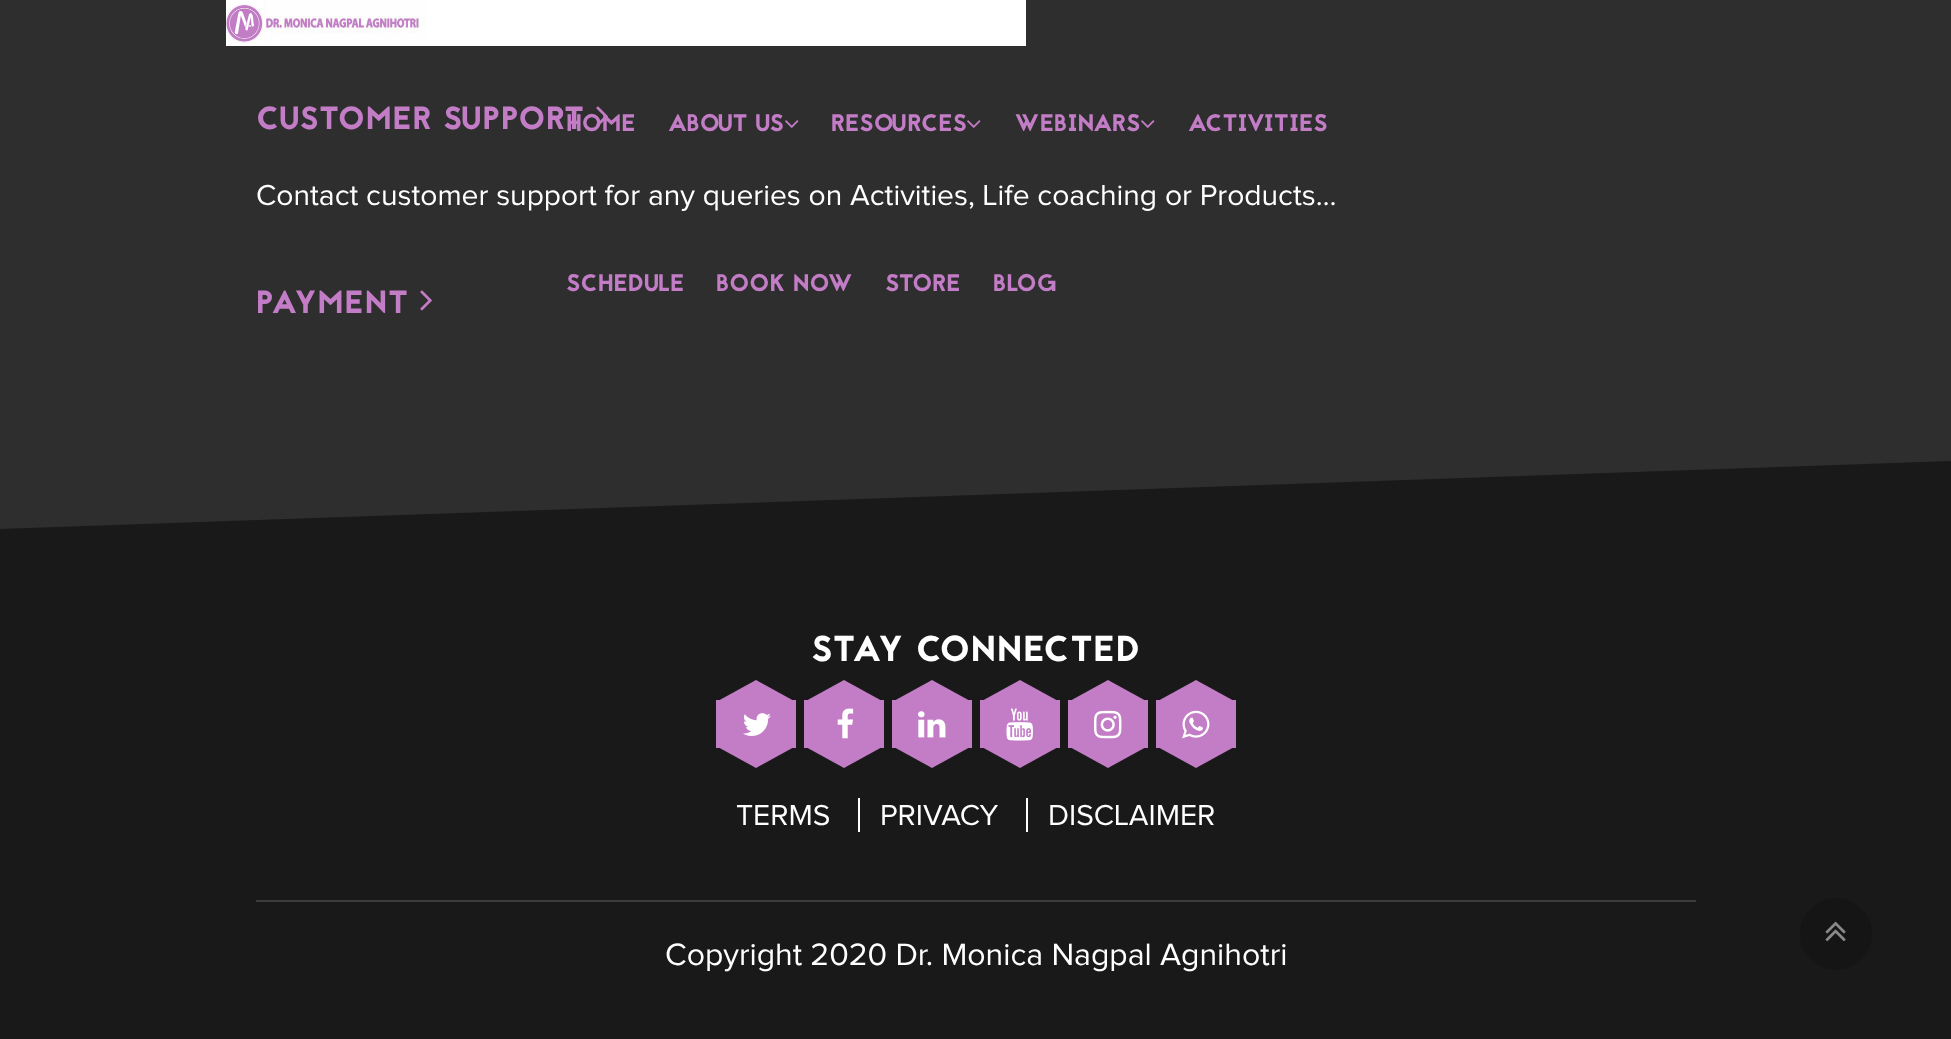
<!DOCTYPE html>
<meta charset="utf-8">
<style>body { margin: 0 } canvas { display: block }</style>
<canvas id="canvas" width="1951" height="1039"></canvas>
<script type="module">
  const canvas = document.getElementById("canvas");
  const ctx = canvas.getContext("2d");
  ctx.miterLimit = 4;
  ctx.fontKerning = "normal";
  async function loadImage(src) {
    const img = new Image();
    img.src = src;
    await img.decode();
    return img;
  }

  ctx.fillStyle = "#2e2e2e";
  ctx.fillRect(0, 0, 1951, 1039);
  ctx.letterSpacing = "1px";
  ctx.font = "32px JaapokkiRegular";
  ctx.fillStyle = "#c37cc6";
  ctx.fillText("CUSTOMER SUPPORT", 256, 129);
  ctx.drawImage(await loadImage("img1.png"), 596, 106, 12, 21);
  ctx.letterSpacing = "0px";
  ctx.font = "30px Proxima Nova";
  ctx.fillStyle = "#ffffff";
  ctx.fillText("Contact customer support for any queries on Activities, Life coaching or Products…", 256, 205);
  ctx.letterSpacing = "1px";
  ctx.font = "32px JaapokkiRegular";
  ctx.fillStyle = "#c37cc6";
  ctx.fillText("PAYMENT", 256, 313);
  ctx.drawImage(await loadImage("img1.png"), 420, 290, 12, 21);
  ctx.fillStyle = "#ffffff";
  ctx.fillRect(426, 0, 600, 46);
  ctx.drawImage(await loadImage("img2.png"), 226, 0, 200, 46);
  ctx.letterSpacing = "0px";
  ctx.font = "24px JaapokkiRegular";
  ctx.fillStyle = "#c37cc6";
  ctx.fillText("HOME", 566, 131);
  ctx.fillText("ABOUT US", 668, 131);
  ctx.drawImage(await loadImage("img3.png"), 785, 120, 14, 8);
  ctx.fillText("RESOURCES", 831, 131);
  ctx.drawImage(await loadImage("img3.png"), 967, 120, 14, 8);
  ctx.fillText("WEBINARS", 1014, 131);
  ctx.drawImage(await loadImage("img3.png"), 1141, 120, 14, 8);
  ctx.fillText("ACTIVITIES", 1188, 131);
  ctx.fillText("SCHEDULE", 566, 291);
  ctx.fillText("BOOK NOW", 716, 291);
  ctx.fillText("STORE", 885, 291);
  ctx.fillText("BLOG", 993, 291);
  ctx.fillStyle = "#191919";
  ctx.fillRect(0, 561, 1951, 478);
  ctx.beginPath();
  ctx.moveTo(0, 529);
  ctx.lineTo(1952, 461);
  ctx.lineTo(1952, 561);
  ctx.lineTo(0, 629);
  ctx.closePath();
  ctx.fill();
  ctx.letterSpacing = "1px";
  ctx.font = "36px JaapokkiRegular";
  ctx.fillStyle = "#ffffff";
  ctx.fillText("STAY CONNECTED", 811, 661);
  ctx.fillStyle = "#c37cc6";
  ctx.fillRect(716, 700, 80, 48);
  ctx.beginPath();
  ctx.moveTo(796, 702);
  ctx.lineTo(716, 702);
  ctx.lineTo(756, 680);
  ctx.closePath();
  ctx.fill();
  ctx.drawImage(await loadImage("img4.png"), 743, 713, 28, 23);
  ctx.beginPath();
  ctx.moveTo(716, 746);
  ctx.lineTo(796, 746);
  ctx.lineTo(756, 768);
  ctx.closePath();
  ctx.fill();
  ctx.fillRect(804, 700, 80, 48);
  ctx.beginPath();
  ctx.moveTo(884, 702);
  ctx.lineTo(804, 702);
  ctx.lineTo(844, 680);
  ctx.closePath();
  ctx.fill();
  ctx.drawImage(await loadImage("img5.png"), 837, 708, 17, 31);
  ctx.beginPath();
  ctx.moveTo(804, 746);
  ctx.lineTo(884, 746);
  ctx.lineTo(844, 768);
  ctx.closePath();
  ctx.fill();
  ctx.fillRect(892, 700, 80, 48);
  ctx.beginPath();
  ctx.moveTo(972, 702);
  ctx.lineTo(892, 702);
  ctx.lineTo(932, 680);
  ctx.closePath();
  ctx.fill();
  ctx.drawImage(await loadImage("img6.png"), 918, 711, 28, 27);
  ctx.beginPath();
  ctx.moveTo(892, 746);
  ctx.lineTo(972, 746);
  ctx.lineTo(932, 768);
  ctx.closePath();
  ctx.fill();
  ctx.fillRect(980, 700, 80, 48);
  ctx.beginPath();
  ctx.moveTo(1060, 702);
  ctx.lineTo(980, 702);
  ctx.lineTo(1020, 680);
  ctx.closePath();
  ctx.fill();
  ctx.drawImage(await loadImage("img7.png"), 1006, 708, 27, 33);
  ctx.beginPath();
  ctx.moveTo(980, 746);
  ctx.lineTo(1060, 746);
  ctx.lineTo(1020, 768);
  ctx.closePath();
  ctx.fill();
  ctx.fillRect(1068, 700, 80, 48);
  ctx.beginPath();
  ctx.moveTo(1148, 702);
  ctx.lineTo(1068, 702);
  ctx.lineTo(1108, 680);
  ctx.closePath();
  ctx.fill();
  ctx.drawImage(await loadImage("img8.png"), 1094, 710, 28, 29);
  ctx.beginPath();
  ctx.moveTo(1068, 746);
  ctx.lineTo(1148, 746);
  ctx.lineTo(1108, 768);
  ctx.closePath();
  ctx.fill();
  ctx.fillRect(1156, 700, 80, 48);
  ctx.beginPath();
  ctx.moveTo(1236, 702);
  ctx.lineTo(1156, 702);
  ctx.lineTo(1196, 680);
  ctx.closePath();
  ctx.fill();
  ctx.drawImage(await loadImage("img9.png"), 1182, 710, 28, 29);
  ctx.beginPath();
  ctx.moveTo(1156, 746);
  ctx.lineTo(1236, 746);
  ctx.lineTo(1196, 768);
  ctx.closePath();
  ctx.fill();
  ctx.letterSpacing = "0px";
  ctx.font = "30px Proxima Nova";
  ctx.fillStyle = "#ffffff";
  ctx.fillText("TERMS", 736, 825);
  ctx.fillText("PRIVACY", 880, 825);
  ctx.fillRect(1026, 798, 2, 34);
  ctx.fillRect(858, 798, 2, 34);
  ctx.fillText("DISCLAIMER", 1048, 825);
  ctx.fillStyle = "#3c3c3c";
  ctx.fillRect(256, 900, 1440, 2);
  ctx.font = "32px Proxima Nova";
  ctx.fillStyle = "#ffffff";
  ctx.fillText("Copyright 2020 Dr. Monica Nagpal Agnihotri", 665, 965);
  ctx.fillStyle = "#151515";
  ctx.beginPath();
  ctx.arc(1836, 934, 36, 0, Math.PI * 2);
  ctx.fill();
  ctx.drawImage(await loadImage("img10.png"), 1825, 921, 21, 21);
</script>
